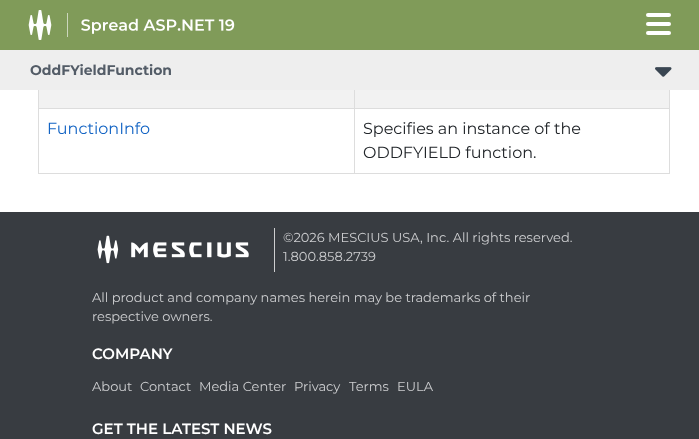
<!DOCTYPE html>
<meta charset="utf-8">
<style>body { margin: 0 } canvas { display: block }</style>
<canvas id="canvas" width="699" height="439"></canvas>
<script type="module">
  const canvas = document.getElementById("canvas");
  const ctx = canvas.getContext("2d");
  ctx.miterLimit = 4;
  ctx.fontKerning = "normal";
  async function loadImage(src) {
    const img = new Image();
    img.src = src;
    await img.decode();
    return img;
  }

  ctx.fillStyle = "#ffffff";
  ctx.fillRect(0, 0, 699, 439);
  ctx.fillStyle = "#809b59";
  ctx.fillRect(0, 0, 699, 50);
  ctx.drawImage(await loadImage("img1.png"), 28, 10, 24, 30);
  ctx.fillStyle = "#ccd7bd";
  ctx.fillRect(67, 13, 1, 24);
  ctx.drawImage(await loadImage("img2.png"), 81, 18, 154, 16);
  ctx.fillStyle = "#ffffff";
  ctx.beginPath();
  ctx.roundRect(646, 13, 25, 4, 2);
  ctx.fill();
  ctx.beginPath();
  ctx.roundRect(646, 22, 25, 4, 2);
  ctx.fill();
  ctx.beginPath();
  ctx.roundRect(646, 31, 25, 4, 2);
  ctx.fill();
  ctx.fillStyle = "#eeeeee";
  ctx.fillRect(0, 50, 699, 40);
  ctx.font = "bold 14px Montserrat";
  ctx.fillStyle = "#535c67";
  ctx.fillText("OddFYieldFunction", 30, 75);
  ctx.drawImage(await loadImage("img3.png"), 655, 67, 17, 10);
  ctx.fillStyle = "#f2f2f2";
  ctx.fillRect(39, 90, 315, 18);
  ctx.fillRect(355, 90, 314, 18);
  ctx.fillStyle = "#dddddd";
  ctx.fillRect(354, 108, 316, 1);
  ctx.fillRect(669, 90, 1, 84);
  ctx.fillRect(354, 173, 316, 1);
  ctx.fillRect(354, 108, 1, 66);
  ctx.fillRect(38, 108, 317, 1);
  ctx.fillRect(354, 90, 1, 19);
  ctx.fillRect(38, 173, 317, 1);
  ctx.fillRect(38, 90, 1, 84);
  ctx.font = "16px Montserrat";
  ctx.fillStyle = "#1364c4";
  ctx.fillText("FunctionInfo", 47, 134);
  ctx.fillStyle = "#212529";
  ctx.fillText("Specifies an instance of the", 363, 134);
  ctx.fillText("ODDFYIELD function.", 363, 158);
  ctx.fillStyle = "#383c41";
  ctx.fillRect(0, 212, 699, 227);
  ctx.fillStyle = "#cdced0";
  ctx.fillRect(274, 228, 1, 44);
  ctx.drawImage(await loadImage("img4.png"), 97, 235, 152, 29);
  ctx.font = "13px Montserrat";
  ctx.fillText("©2026 MESCIUS USA, Inc. All rights reserved.", 283, 242);
  ctx.fillText("1.800.858.2739", 283, 261);
  ctx.fillText("All product and company names herein may be trademarks of their", 92, 302);
  ctx.fillText("respective owners.", 92, 321);
  ctx.font = "600 15px Montserrat";
  ctx.fillStyle = "#ffffff";
  ctx.fillText("COMPANY", 92, 359);
  ctx.font = "13px Montserrat";
  ctx.fillStyle = "#cdced0";
  ctx.fillText("About", 92, 391);
  ctx.fillText("Contact", 140, 391);
  ctx.fillText("Media Center", 199, 391);
  ctx.fillText("Privacy", 294, 391);
  ctx.fillText("Terms", 349, 391);
  ctx.fillText("EULA", 397, 391);
  ctx.font = "600 15px Montserrat";
  ctx.fillStyle = "#ffffff";
  ctx.fillText("GET THE LATEST NEWS", 92, 434);
</script>
